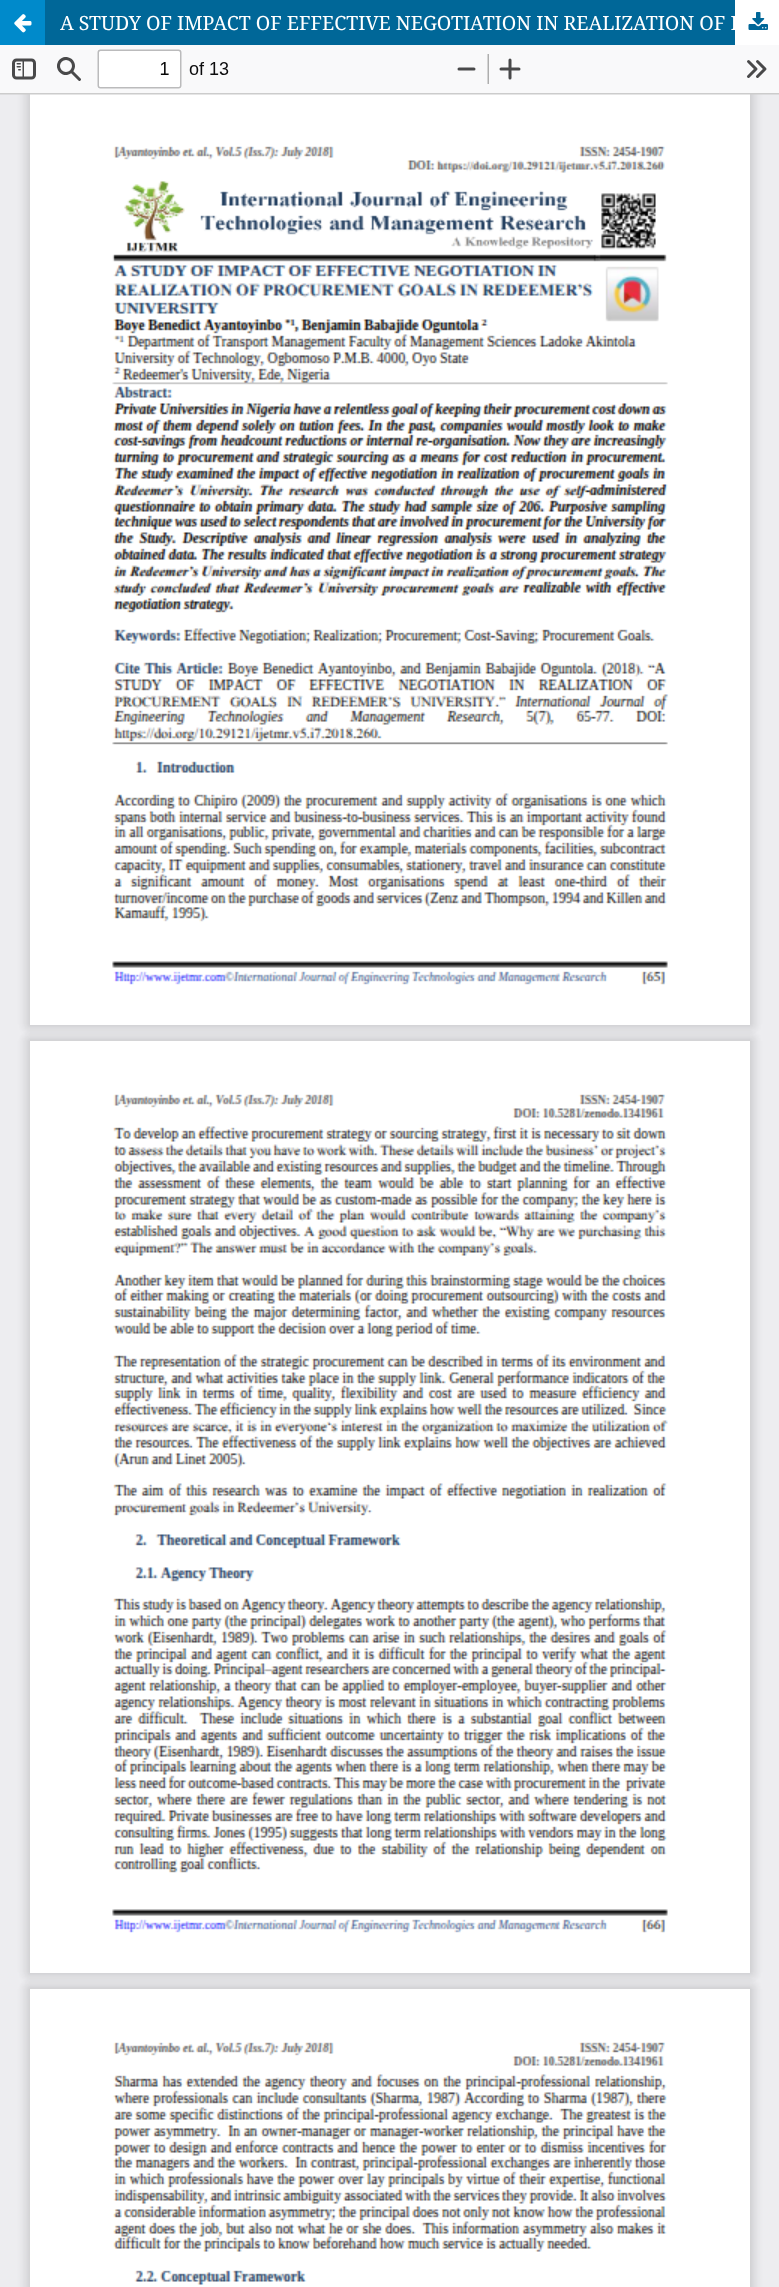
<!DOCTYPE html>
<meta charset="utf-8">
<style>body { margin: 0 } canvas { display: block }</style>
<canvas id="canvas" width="779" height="2287"></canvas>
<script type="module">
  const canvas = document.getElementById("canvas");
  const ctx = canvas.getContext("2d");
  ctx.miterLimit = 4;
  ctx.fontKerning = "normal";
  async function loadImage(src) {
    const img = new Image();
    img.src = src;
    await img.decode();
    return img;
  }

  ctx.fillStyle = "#ffffff";
  ctx.fillRect(0, 0, 779, 2287);
  ctx.fillStyle = "#006798";
  ctx.fillRect(45, 0, 690, 45);
  ctx.fillStyle = "#008acb";
  ctx.fillRect(0, 0, 45, 45);
  ctx.drawImage(await loadImage("img1.png"), 14, 14, 18, 19);
  ctx.font = "19.55px Noto Serif";
  ctx.fillStyle = "#ffffff";
  ctx.fillText("A STUDY OF IMPACT OF EFFECTIVE NEGOTIATION IN REALIZATION OF P", 60, 30);
  ctx.drawImage(await loadImage("img2.png"), 748, 12, 20, 18);
  ctx.drawImage(await loadImage("img3.png"), 0, 45, 779, 2242);
</script>
